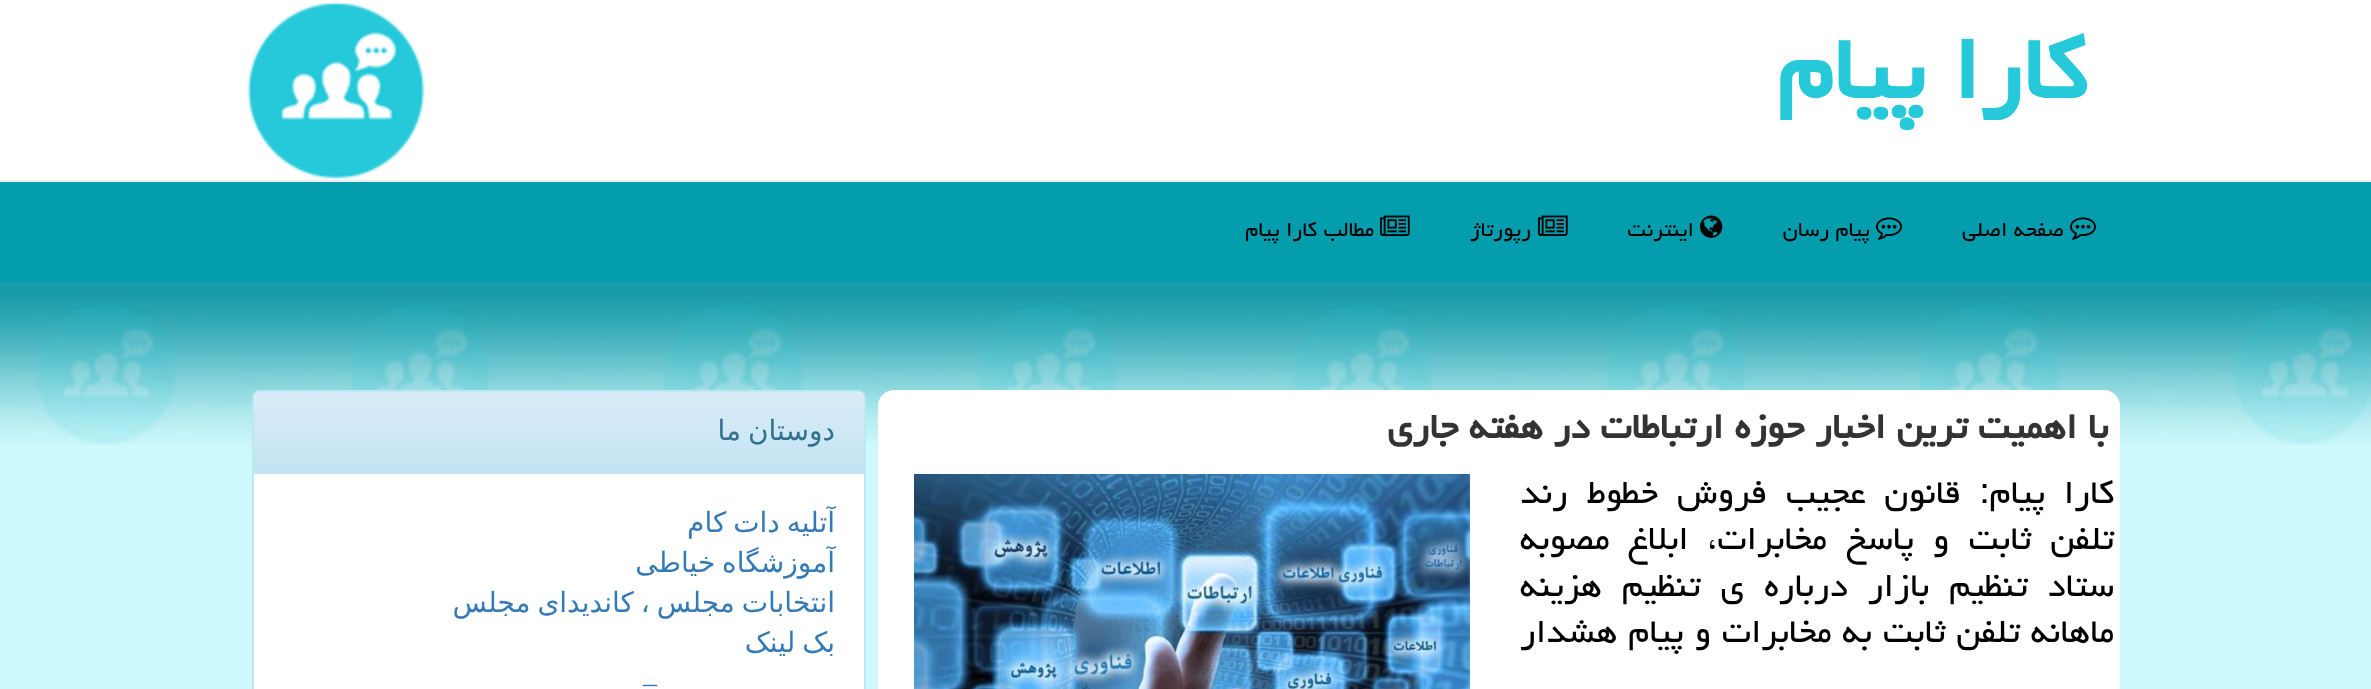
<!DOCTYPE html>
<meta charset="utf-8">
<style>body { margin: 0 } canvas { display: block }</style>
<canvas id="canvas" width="2371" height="689"></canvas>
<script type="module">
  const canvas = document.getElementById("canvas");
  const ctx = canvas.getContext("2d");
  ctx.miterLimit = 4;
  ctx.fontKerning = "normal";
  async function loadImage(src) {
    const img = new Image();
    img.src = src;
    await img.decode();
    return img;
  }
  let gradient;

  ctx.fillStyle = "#cdf8fc";
  ctx.fillRect(0, 0, 2371, 689);
  ctx.fillStyle = "#ffffff";
  ctx.fillRect(0, 0, 2371, 180);
  ctx.fillStyle = "#eeeeee";
  ctx.fillRect(0, 180, 2371, 2);
  ctx.direction = "rtl";
  ctx.font = "bold 112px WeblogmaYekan";
  ctx.fillStyle = "#25c9da";
  ctx.fillText("كارا پیام", 2086, 98);
  ctx.drawImage(await loadImage("img1.png"), 247, 2, 178, 177);
  ctx.fillStyle = "#039dad";
  ctx.fillRect(0, 182, 2371, 100);
  ctx.drawImage(await loadImage("img2.png"), 2070, 217, 26, 23);
  ctx.font = "26px WeblogmaYekan";
  ctx.fillStyle = "#000000";
  ctx.fillText("صفحه اصلی", 2064, 236);
  ctx.drawImage(await loadImage("img2.png"), 1876, 217, 26, 23);
  ctx.fillText("پیام رسان", 1870, 236);
  ctx.drawImage(await loadImage("img3.png"), 1700, 215, 23, 23);
  ctx.fillText("اینترنت", 1694, 236);
  ctx.drawImage(await loadImage("img4.png"), 1538, 215, 30, 21);
  ctx.fillText("رپورتاژ", 1531, 236);
  ctx.drawImage(await loadImage("img4.png"), 1380, 215, 30, 21);
  ctx.fillText("مطالب كارا پیام", 1374, 236);
  ctx.drawImage(await loadImage("img5.png"), 0, 282, 2371, 163);
  ctx.fillStyle = "#ffffff";
  ctx.beginPath();
  ctx.roundRect(878, 390, 1242, 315, 16);
  ctx.fill();
  ctx.font = "bold 44.75px WeblogmaYekan";
  ctx.fillStyle = "#333333";
  ctx.fillText("با اهمیت ترین اخبار حوزه ارتباطات در هفته جاری", 2108, 438);
  ctx.wordSpacing = "8.5px";
  ctx.font = "42px WeblogmaYekan";
  ctx.fillStyle = "#000000";
  ctx.fillText("کارا پیام: قانون عجیب فروش خطوط رند", 2114, 503);
  ctx.drawImage(await loadImage("img6.png"), 914, 474, 556, 215);
  ctx.wordSpacing = "9px";
  ctx.fillText("تلفن ثابت و پاسخ مخابرات، ابلاغ مصوبه", 2114, 549);
  ctx.wordSpacing = "10px";
  ctx.fillText("ستاد تنظیم بازار درباره ی تنظیم هزینه", 2114, 596);
  ctx.wordSpacing = "0.75px";
  ctx.fillText("ماهانه تلفن ثابت به مخابرات و پیام هشدار", 2114, 642);
  ctx.fillStyle = "#ffffff";
  ctx.beginPath();
  ctx.roundRect(253, 391, 612, 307, 7);
  ctx.fill();
  ctx.strokeStyle = "#bce8f1";
  ctx.lineWidth = 2;
  ctx.stroke();
  gradient = ctx.createLinearGradient(559, 392, 559, 472);
  gradient.addColorStop(0, "#d9edf7");
  gradient.addColorStop(1, "#c4e3f3");
  ctx.fillStyle = gradient;
  ctx.beginPath();
  ctx.roundRect(254, 392, 610, 80, [6, 6, 0, 0]);
  ctx.fill();
  ctx.fillStyle = "#bce8f1";
  ctx.fillRect(254, 472, 610, 2);
  ctx.wordSpacing = "-2px";
  ctx.font = "28px DejaVu Sans";
  ctx.fillStyle = "#31708f";
  ctx.fillText("دوستان ما", 835, 440);
  ctx.fillStyle = "#337ab7";
  ctx.fillText("آتلیه دات کام", 835, 532);
  ctx.fillText("آموزشگاه خیاطی", 835, 572);
  ctx.fillText("انتخابات مجلس ، کاندیدای مجلس", 835, 612);
  ctx.fillText("بک لینک", 835, 652);
  ctx.wordSpacing = "0px";
  ctx.font = "28px Liberation Serif";
  ctx.fillText("–", 657, 692);
</script>
